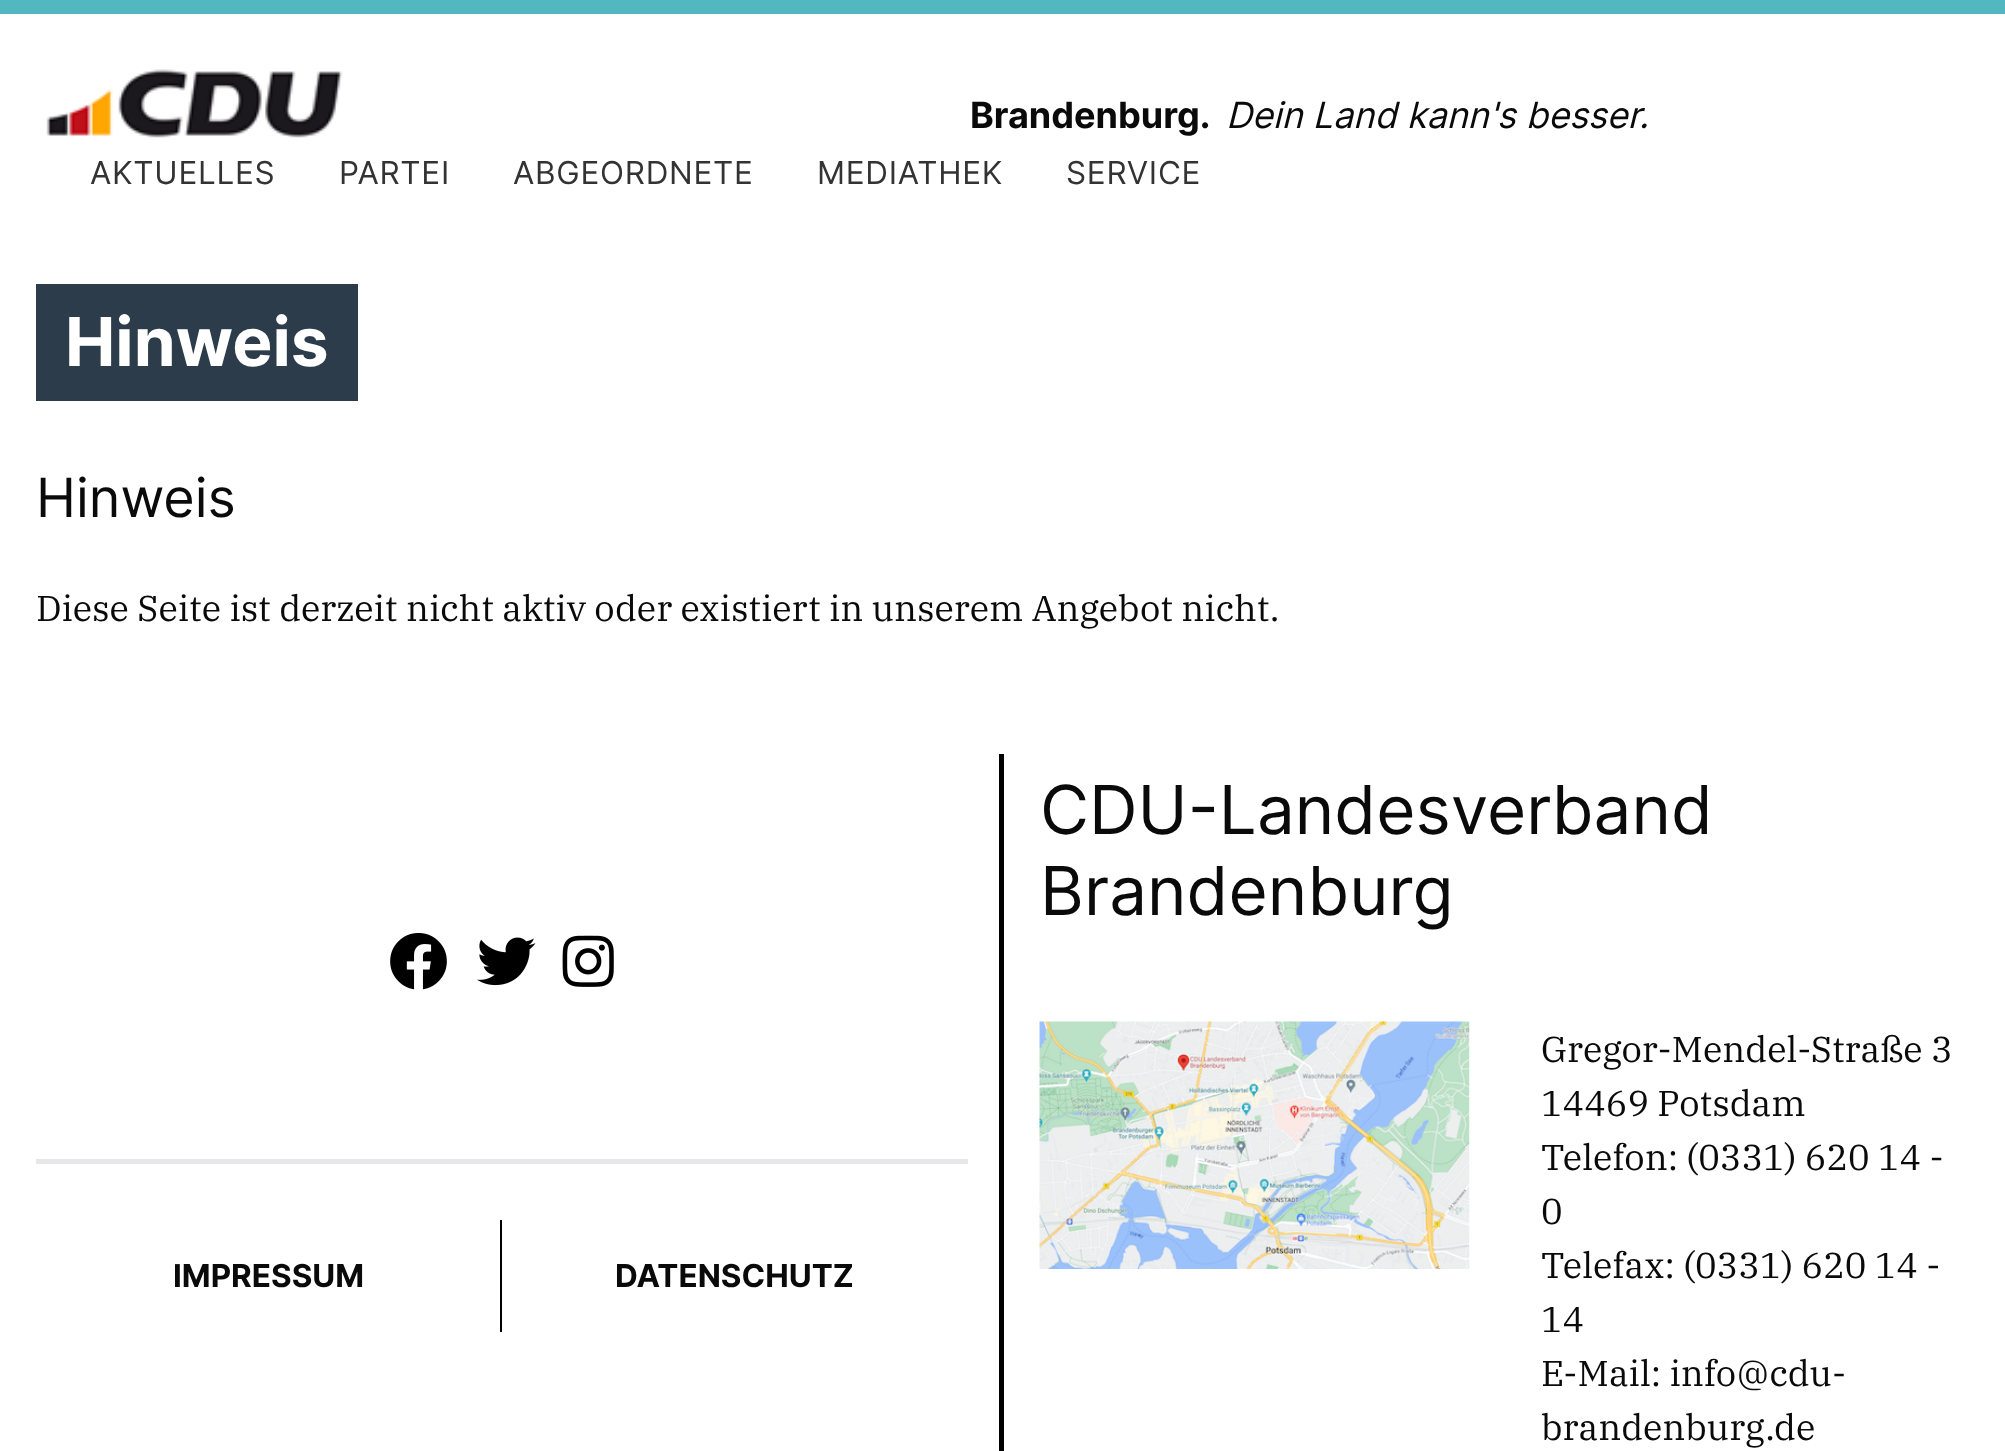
<!DOCTYPE html>
<meta charset="utf-8">
<style>body { margin: 0 } canvas { display: block }</style>
<canvas id="canvas" width="2005" height="1451"></canvas>
<script type="module">
  const canvas = document.getElementById("canvas");
  const ctx = canvas.getContext("2d");
  ctx.miterLimit = 4;
  ctx.fontKerning = "normal";
  async function loadImage(src) {
    const img = new Image();
    img.src = src;
    await img.decode();
    return img;
  }

  ctx.fillStyle = "#ffffff";
  ctx.fillRect(0, 0, 2005, 1451);
  ctx.fillStyle = "#52b7c1";
  ctx.fillRect(0, 0, 2005, 14);
  ctx.drawImage(await loadImage("img1.png"), 46, 69, 297, 69);
  ctx.font = "bold 36px Inter";
  ctx.fillStyle = "#0b0a0a";
  ctx.fillText("Brandenburg.", 970, 128);
  ctx.font = "italic 36px Inter";
  ctx.fillText("Dein Land kann's besser.", 1226, 128);
  ctx.letterSpacing = "0.75px";
  ctx.font = "31.5px Inter";
  ctx.fillStyle = "#333333";
  ctx.fillText("AKTUELLES", 90, 184);
  ctx.fillText("PARTEI", 339, 184);
  ctx.fillText("ABGEORDNETE", 513, 184);
  ctx.fillText("MEDIATHEK", 817, 184);
  ctx.fillText("SERVICE", 1066, 184);
  ctx.fillStyle = "#2d3c4b";
  ctx.fillRect(36, 284, 322, 117);
  ctx.letterSpacing = "0px";
  ctx.font = "bold 67.5px Inter";
  ctx.fillStyle = "#ffffff";
  ctx.fillText("Hinweis", 65, 366);
  ctx.font = "54px Inter";
  ctx.fillStyle = "#0b0a0a";
  ctx.fillText("Hinweis", 36, 517);
  ctx.font = "36px IBM Plex Serif";
  ctx.fillText("Diese Seite ist derzeit nicht aktiv oder existiert in unserem Angebot nicht.", 36, 621);
  ctx.drawImage(await loadImage("img2.png"), 390, 933, 57, 57);
  ctx.drawImage(await loadImage("img3.png"), 477, 937, 59, 49);
  ctx.drawImage(await loadImage("img4.png"), 562, 935, 52, 52);
  ctx.fillStyle = "#e5e7eb";
  ctx.fillRect(36, 1159, 932, 5);
  ctx.font = "bold 31.5px Inter";
  ctx.fillStyle = "#0b0a0a";
  ctx.fillText("IMPRESSUM", 173, 1287);
  ctx.fillStyle = "#000000";
  ctx.fillRect(500, 1220, 2, 112);
  ctx.fillStyle = "#0b0a0a";
  ctx.fillText("DATENSCHUTZ", 615, 1287);
  ctx.fillStyle = "#000000";
  ctx.fillRect(999, 754, 5, 697);
  ctx.font = "67.5px Inter";
  ctx.fillStyle = "#0b0a0a";
  ctx.fillText("CDU-Landesverband", 1040, 834);
  ctx.fillText("Brandenburg", 1040, 915);
  ctx.drawImage(await loadImage("img5.png"), 1039, 1021, 431, 248);
  ctx.font = "36px IBM Plex Serif";
  ctx.fillText("Gregor-Mendel-Straße 3", 1541, 1062);
  ctx.fillText("14469 Potsdam", 1541, 1116);
  ctx.fillText("Telefon: (0331) 620 14 -", 1541, 1170);
  ctx.fillText("0", 1541, 1224);
  ctx.fillText("Telefax: (0331) 620 14 -", 1541, 1278);
  ctx.fillText("14", 1541, 1332);
  ctx.fillText("E-Mail: info@cdu-", 1541, 1386);
  ctx.fillText("brandenburg.de", 1541, 1440);
</script>
